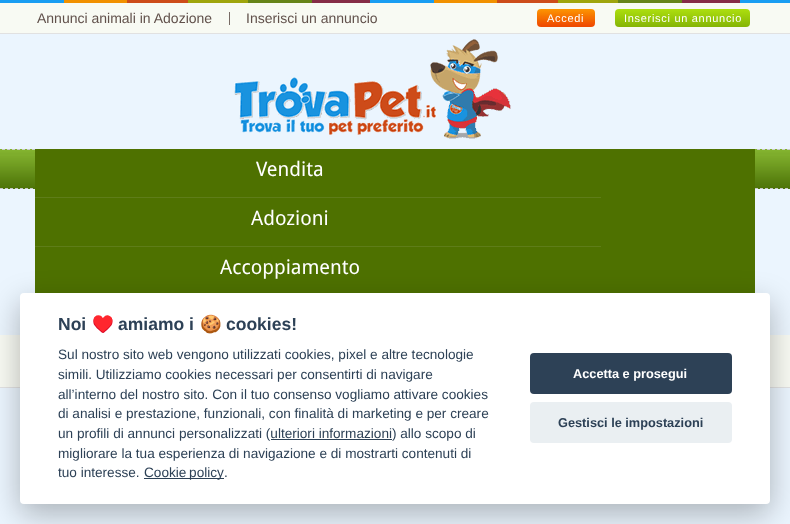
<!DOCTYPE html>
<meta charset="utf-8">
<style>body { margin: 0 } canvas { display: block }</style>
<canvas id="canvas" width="790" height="524"></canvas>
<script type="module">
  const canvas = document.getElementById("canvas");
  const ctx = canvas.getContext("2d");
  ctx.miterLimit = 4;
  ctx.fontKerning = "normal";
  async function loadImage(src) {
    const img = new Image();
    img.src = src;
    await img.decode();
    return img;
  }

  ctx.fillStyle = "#ebf5fe";
  ctx.fillRect(0, 0, 790, 524);
  ctx.drawImage(await loadImage("img1.png"), 0, 0, 790, 3);
  ctx.fillStyle = "#f8faf3";
  ctx.fillRect(0, 3, 790, 30);
  ctx.fillStyle = "#e1e1e1";
  ctx.fillRect(0, 33, 790, 1);
  ctx.font = "14px Liberation Sans";
  ctx.fillStyle = "#61514b";
  ctx.fillText("Annunci animali in Adozione", 37, 23);
  ctx.fillStyle = "#786b65";
  ctx.fillRect(229, 12, 1, 13);
  ctx.fillStyle = "#61514b";
  ctx.fillText("Inserisci un annuncio", 246, 23);
  ctx.drawImage(await loadImage("img2.png"), 537, 9, 58, 18);
  ctx.letterSpacing = "0.7px";
  ctx.font = "11px Liberation Sans";
  ctx.fillStyle = "#ffffff";
  ctx.fillText("Accedi", 547, 22);
  ctx.drawImage(await loadImage("img3.png"), 615, 9, 135, 18);
  ctx.fillText("Inserisci un annuncio", 624, 22);
  ctx.drawImage(await loadImage("img4.png"), 234, 39, 277, 100);
  ctx.drawImage(await loadImage("img5.png"), 0, 149, 790, 40);
  ctx.fillStyle = "#4e7100";
  ctx.fillRect(35, 149, 720, 144);
  ctx.fillStyle = "#5e7d19";
  ctx.fillRect(35, 197, 566, 1);
  ctx.letterSpacing = "0px";
  ctx.font = "20px Droid Sans";
  ctx.fillStyle = "#ffffff";
  ctx.fillText("Vendita", 256, 176);
  ctx.fillStyle = "#5e7d19";
  ctx.fillRect(35, 246, 566, 1);
  ctx.fillStyle = "#ffffff";
  ctx.fillText("Adozioni", 251, 225);
  ctx.fillText("Accoppiamento", 220, 274);
  ctx.fillStyle = "#f8faf3";
  ctx.fillRect(0, 335, 790, 52);
  ctx.fillStyle = "#e2e2e2";
  ctx.fillRect(0, 387, 790, 1);
  ctx.fillStyle = "rgba(2, 2, 3, 0.28)";
  ctx.filter = "blur(15px)";
  ctx.beginPath();
  ctx.roundRect(20, 303, 750, 211, 4);
  ctx.fill();
  ctx.filter = "none";
  ctx.fillStyle = "#ffffff";
  ctx.beginPath();
  ctx.roundRect(20, 293, 750, 211, 4);
  ctx.fill();
  ctx.font = "bold 17.5px Liberation Sans";
  ctx.fillStyle = "#2d4156";
  ctx.fillText("Noi", 58, 330);
  ctx.font = "bold 17.5px Noto Color Emoji";
  ctx.fillText("♥️", 92, 330);
  ctx.font = "bold 17.5px Liberation Sans";
  ctx.fillText("amiamo i", 118, 330);
  ctx.font = "bold 17.5px Noto Color Emoji";
  ctx.fillText("🍪", 200, 330);
  ctx.font = "bold 17.5px Liberation Sans";
  ctx.fillText("cookies!", 226, 330);
  ctx.font = "13.6px Liberation Sans";
  ctx.fillText("Sul nostro sito web vengono utilizzati cookies, pixel e altre tecnologie", 58, 359);
  ctx.fillText("simili. Utilizziamo cookies necessari per consentirti di navigare", 58, 379);
  ctx.fillText("all’interno del nostro sito. Con il tuo consenso vogliamo attivare cookies", 58, 399);
  ctx.fillText("di analisi e prestazione, funzionali, con finalità di marketing e per creare", 58, 418);
  ctx.fillText("un profili di annunci personalizzati (ulteriori informazioni) allo scopo di", 58, 438);
  ctx.fillRect(271, 439, 121, 1);
  ctx.fillText("migliorare la tua esperienza di navigazione e di mostrarti contenuti di", 58, 458);
  ctx.fillText("tuo interesse.", 58, 477);
  ctx.fillRect(144, 478, 80, 1);
  ctx.wordSpacing = "-1px";
  ctx.fillText("Cookie policy", 144, 477);
  ctx.wordSpacing = "0px";
  ctx.fillText(".", 224, 477);
  ctx.beginPath();
  ctx.roundRect(530, 353, 202, 41, 4);
  ctx.fill();
  ctx.font = "bold 12.75px Liberation Sans";
  ctx.fillStyle = "#ffffff";
  ctx.fillText("Accetta e prosegui", 573, 378);
  ctx.fillStyle = "#eaeff2";
  ctx.beginPath();
  ctx.roundRect(530, 402, 202, 41, 4);
  ctx.fill();
  ctx.fillStyle = "#2d4156";
  ctx.fillText("Gestisci le impostazioni", 558, 427);
</script>
